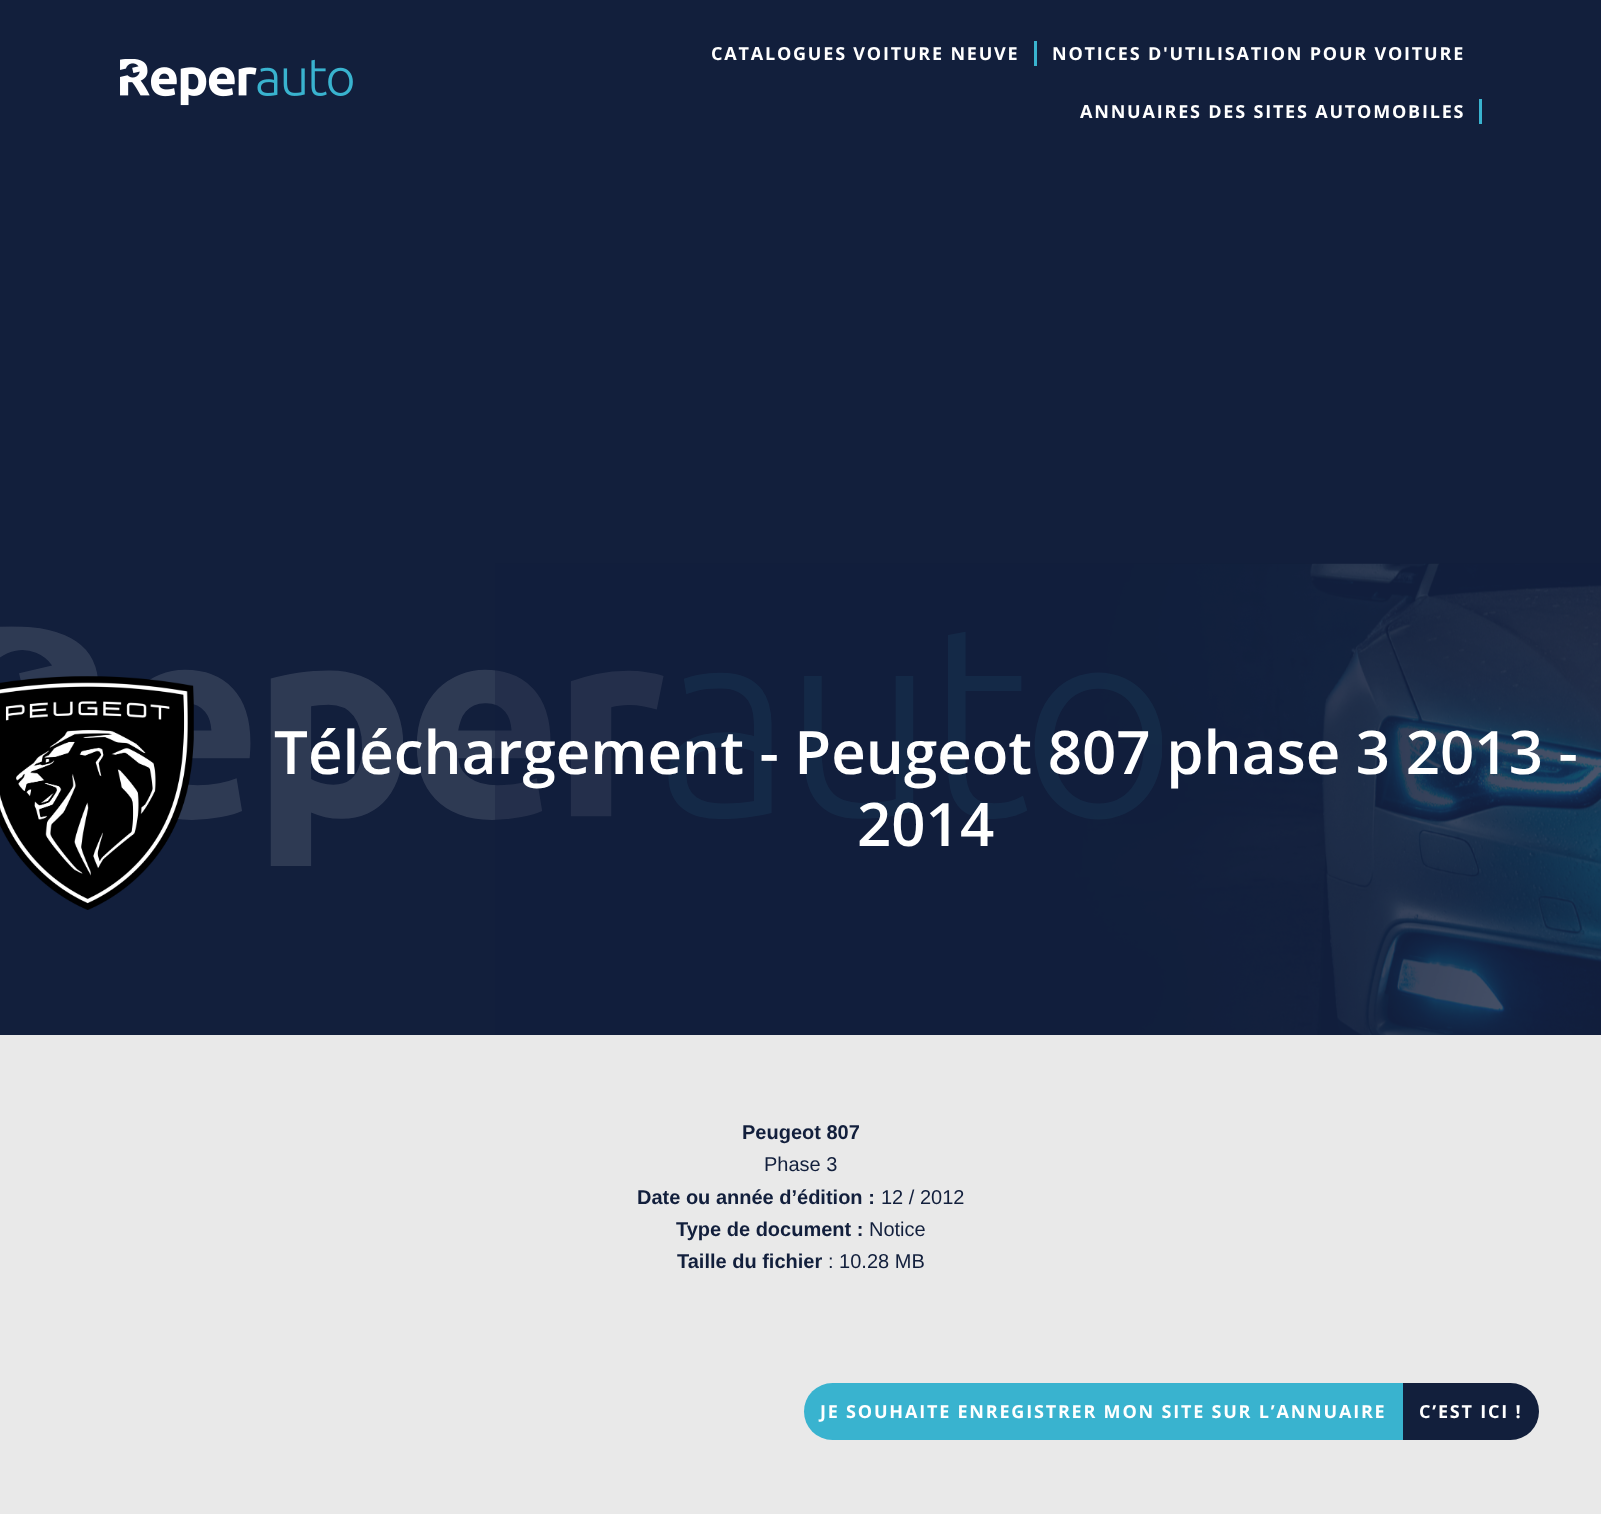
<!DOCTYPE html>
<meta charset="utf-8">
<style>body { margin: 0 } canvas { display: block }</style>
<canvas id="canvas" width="1601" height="1514"></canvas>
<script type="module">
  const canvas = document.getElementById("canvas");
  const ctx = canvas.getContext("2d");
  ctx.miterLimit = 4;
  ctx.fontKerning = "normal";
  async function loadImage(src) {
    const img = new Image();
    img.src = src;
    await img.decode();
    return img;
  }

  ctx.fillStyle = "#e9e9e9";
  ctx.fillRect(0, 0, 1601, 1514);
  ctx.fillStyle = "#121f3c";
  ctx.fillRect(0, 0, 1601, 1035);
  ctx.drawImage(await loadImage("img1.png"), 120, 59, 233, 47);
  ctx.letterSpacing = "1.8px";
  ctx.font = "bold 18px Open Sans";
  ctx.fillStyle = "#ffffff";
  ctx.fillText("CATALOGUES VOITURE NEUVE", 711, 60);
  ctx.fillStyle = "#39b3cf";
  ctx.fillRect(1034, 41, 3, 25);
  ctx.fillStyle = "#ffffff";
  ctx.fillText("NOTICES D'UTILISATION POUR VOITURE", 1052, 60);
  ctx.fillText("ANNUAIRES DES SITES AUTOMOBILES", 1080, 118);
  ctx.fillStyle = "#39b3cf";
  ctx.fillRect(1479, 99, 3, 25);
  ctx.beginPath();
  ctx.roundRect(804, 1383, 599, 57, [28.5, 0, 0, 28.5]);
  ctx.fill();
  ctx.fillStyle = "#ffffff";
  ctx.fillText("JE SOUHAITE ENREGISTRER MON SITE SUR L’ANNUAIRE", 820, 1418);
  ctx.fillStyle = "#121f3c";
  ctx.beginPath();
  ctx.roundRect(1403, 1383, 136, 57, [0, 28.5, 28.5, 0]);
  ctx.fill();
  ctx.fillStyle = "#ffffff";
  ctx.fillText("C’EST ICI !", 1419, 1418);
  ctx.drawImage(await loadImage("img3.png"), 0, 626, 1162, 240);
  ctx.drawImage(await loadImage("img2.png"), 495, 563, 1106, 472);
  ctx.drawImage(await loadImage("img4.png"), 0, 676, 194, 234);
  ctx.letterSpacing = "0px";
  ctx.font = "600 60px Open Sans";
  ctx.fillText("Téléchargement - Peugeot 807 phase 3 2013 -", 274, 774);
  ctx.fillText("2014", 857, 846);
  ctx.font = "bold 20px Liberation Sans";
  ctx.fillStyle = "#121f3c";
  ctx.fillText("Peugeot 807", 742, 1139);
  ctx.font = "20px Liberation Sans";
  ctx.fillText("Phase 3", 764, 1171);
  ctx.font = "bold 20px Liberation Sans";
  ctx.fillText("Date ou année d’édition :", 637, 1204);
  ctx.font = "20px Liberation Sans";
  ctx.fillText("12 / 2012", 881, 1204);
  ctx.font = "bold 20px Liberation Sans";
  ctx.fillText("Type de document :", 676, 1236);
  ctx.font = "20px Liberation Sans";
  ctx.fillText("Notice", 869, 1236);
  ctx.font = "bold 20px Liberation Sans";
  ctx.fillText("Taille du fichier", 677, 1268);
  ctx.font = "20px Liberation Sans";
  ctx.fillText(": 10.28 MB", 828, 1268);
</script>
